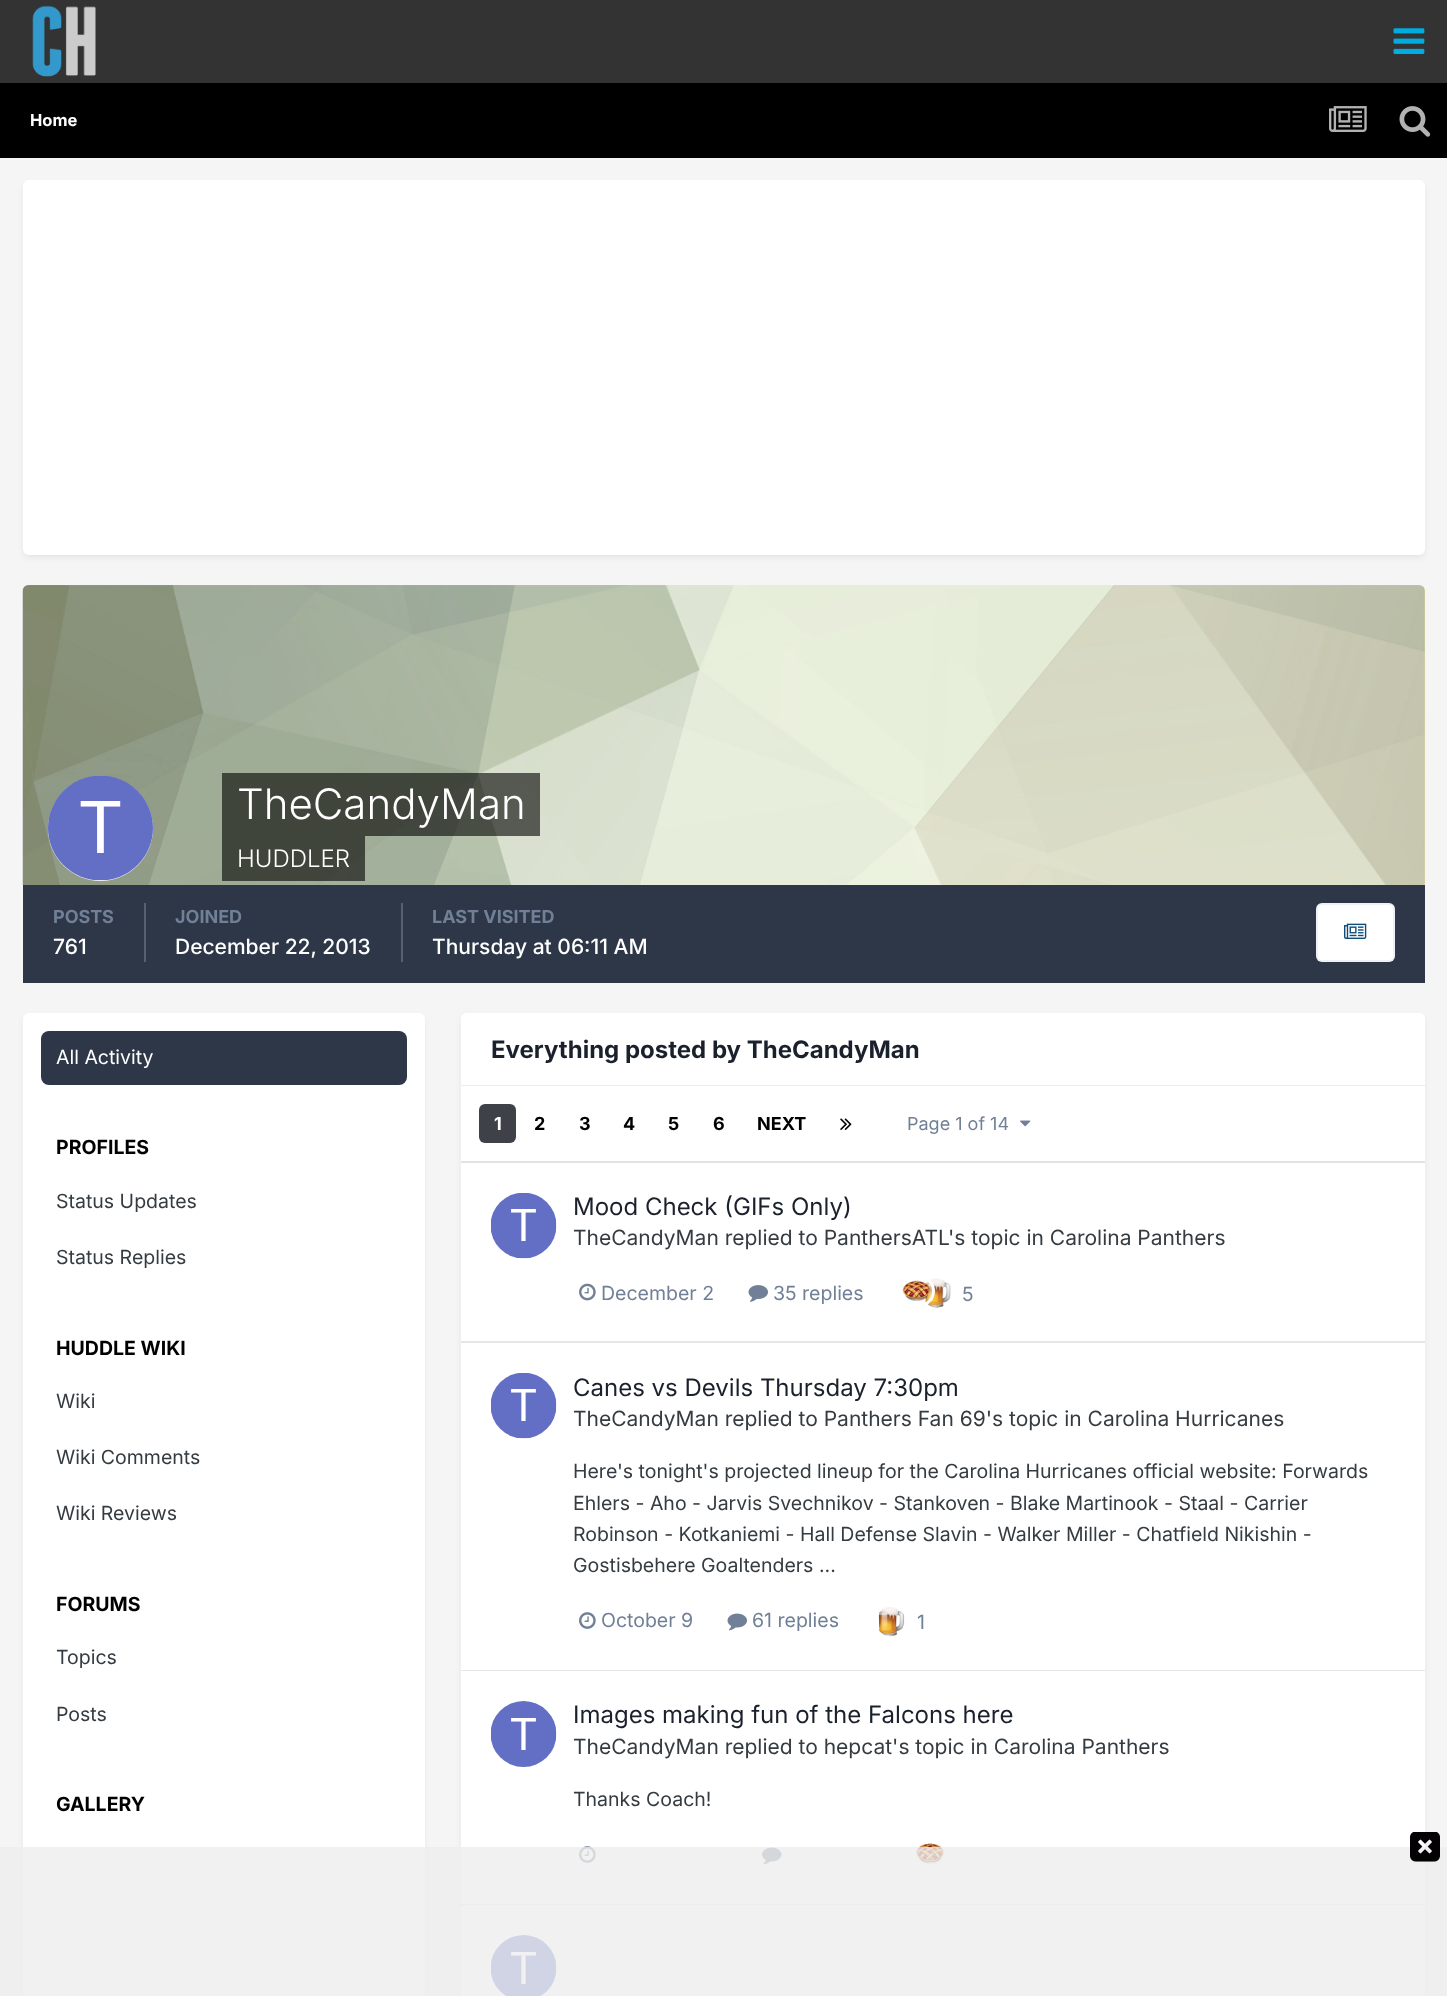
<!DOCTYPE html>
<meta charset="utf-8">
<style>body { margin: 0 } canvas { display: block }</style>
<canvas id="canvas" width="1447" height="1996"></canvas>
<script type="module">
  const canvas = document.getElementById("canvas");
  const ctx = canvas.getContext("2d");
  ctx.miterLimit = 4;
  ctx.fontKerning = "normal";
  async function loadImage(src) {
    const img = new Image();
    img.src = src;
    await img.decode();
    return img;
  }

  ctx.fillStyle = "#f5f5f5";
  ctx.fillRect(0, 0, 1447, 1996);
  ctx.fillStyle = "#333333";
  ctx.fillRect(0, 0, 1447, 83);
  ctx.drawImage(await loadImage("img1.png"), 32, 5, 64, 72);
  ctx.drawImage(await loadImage("img2.png"), 1393, 28, 32, 26);
  ctx.fillStyle = "#000000";
  ctx.fillRect(0, 83, 1447, 75);
  ctx.font = "bold 16.5px Inter";
  ctx.fillStyle = "#ffffff";
  ctx.fillText("Home", 30, 126);
  ctx.drawImage(await loadImage("img3.png"), 1329, 106, 38, 26);
  ctx.drawImage(await loadImage("img4.png"), 1399, 106, 32, 31);
  ctx.fillStyle = "rgba(45, 55, 72, 0.1)";
  ctx.filter = "blur(3px)";
  ctx.beginPath();
  ctx.roundRect(24, 185, 1400, 372, 5);
  ctx.fill();
  ctx.filter = "none";
  ctx.fillStyle = "#ffffff";
  ctx.beginPath();
  ctx.roundRect(23, 180, 1402, 375, 6);
  ctx.fill();
  ctx.fillStyle = "#e0ff99";
  ctx.beginPath();
  ctx.roundRect(23, 585, 1402, 300, [6, 6, 0, 0]);
  ctx.fill();
  ctx.drawImage(await loadImage("img5.png"), 22, 585, 1403, 300);
  ctx.fillStyle = "#ffffff";
  ctx.beginPath();
  ctx.arc(100.5, 828.5, 52.5, 0, Math.PI * 2);
  ctx.fill();
  ctx.drawImage(await loadImage("img6.png"), 48, 776, 105, 105);
  ctx.fillStyle = "rgba(0, 0, 0, 0.6)";
  ctx.fillRect(222, 773, 318, 63);
  ctx.font = "300 42px Inter";
  ctx.fillStyle = "#ffffff";
  ctx.fillText("TheCandyMan", 237, 819);
  ctx.fillStyle = "rgba(0, 0, 0, 0.6)";
  ctx.fillRect(222, 836, 143, 45);
  ctx.font = "300 24px Inter";
  ctx.fillStyle = "#ffffff";
  ctx.fillText("HUDDLER", 237, 867);
  ctx.fillStyle = "#2d3748";
  ctx.fillRect(23, 885, 1402, 98);
  ctx.fillStyle = "#575f6d";
  ctx.fillRect(144, 903, 2, 59);
  ctx.font = "bold 18px Inter";
  ctx.fillStyle = "#718096";
  ctx.fillText("POSTS", 53, 923);
  ctx.font = "500 21px Inter";
  ctx.fillStyle = "#ffffff";
  ctx.fillText("761", 53, 954);
  ctx.fillStyle = "#575f6d";
  ctx.fillRect(401, 903, 2, 59);
  ctx.font = "bold 18px Inter";
  ctx.fillStyle = "#718096";
  ctx.fillText("JOINED", 175, 923);
  ctx.font = "500 21px Inter";
  ctx.fillStyle = "#ffffff";
  ctx.fillText("December 22, 2013", 175, 954);
  ctx.font = "bold 18px Inter";
  ctx.fillStyle = "#718096";
  ctx.fillText("LAST VISITED", 432, 923);
  ctx.font = "500 21px Inter";
  ctx.fillStyle = "#ffffff";
  ctx.fillText("Thursday at 06:11 AM", 432, 954);
  ctx.beginPath();
  ctx.roundRect(1316, 903, 79, 59, 6);
  ctx.fill();
  ctx.beginPath();
  ctx.roundRect(1317, 904, 77, 57, 5);
  ctx.strokeStyle = "rgba(14, 76, 121, 0.07)";
  ctx.lineWidth = 2;
  ctx.stroke();
  ctx.drawImage(await loadImage("img7.png"), 1344, 923, 23, 16);
  ctx.fillStyle = "rgba(45, 55, 72, 0.1)";
  ctx.filter = "blur(3px)";
  ctx.beginPath();
  ctx.roundRect(24, 1017, 399, 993, 5);
  ctx.fill();
  ctx.filter = "none";
  ctx.fillStyle = "#ffffff";
  ctx.beginPath();
  ctx.roundRect(23, 1013, 402, 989, 6);
  ctx.fill();
  ctx.fillStyle = "#2d3748";
  ctx.beginPath();
  ctx.roundRect(41, 1031, 366, 54, 8);
  ctx.fill();
  ctx.font = "19.5px Inter";
  ctx.fillStyle = "#ffffff";
  ctx.fillText("All Activity", 56, 1064);
  ctx.font = "bold 19.5px Inter";
  ctx.fillStyle = "#000000";
  ctx.fillText("PROFILES", 56, 1154);
  ctx.font = "19.5px Inter";
  ctx.fillStyle = "#353c41";
  ctx.fillText("Status Updates", 56, 1208);
  ctx.fillText("Status Replies", 56, 1264);
  ctx.font = "bold 19.5px Inter";
  ctx.fillStyle = "#000000";
  ctx.fillText("HUDDLE WIKI", 56, 1355);
  ctx.font = "19.5px Inter";
  ctx.fillStyle = "#353c41";
  ctx.fillText("Wiki", 56, 1408);
  ctx.fillText("Wiki Comments", 56, 1464);
  ctx.fillText("Wiki Reviews", 56, 1520);
  ctx.font = "bold 19.5px Inter";
  ctx.fillStyle = "#000000";
  ctx.fillText("FORUMS", 56, 1611);
  ctx.font = "19.5px Inter";
  ctx.fillStyle = "#353c41";
  ctx.fillText("Topics", 56, 1664);
  ctx.fillText("Posts", 56, 1721);
  ctx.font = "bold 19.5px Inter";
  ctx.fillStyle = "#000000";
  ctx.fillText("GALLERY", 56, 1811);
  ctx.fillStyle = "rgba(45, 55, 72, 0.1)";
  ctx.filter = "blur(3px)";
  ctx.beginPath();
  ctx.roundRect(462, 1017, 962, 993, 5);
  ctx.fill();
  ctx.filter = "none";
  ctx.fillStyle = "#ffffff";
  ctx.beginPath();
  ctx.roundRect(461, 1013, 964, 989, 6);
  ctx.fill();
  ctx.beginPath();
  ctx.roundRect(461, 1013, 964, 73, [6, 6, 0, 0]);
  ctx.fill();
  ctx.fillStyle = "#eaecef";
  ctx.fillRect(461, 1085, 964, 1);
  ctx.font = "bold 24px Inter";
  ctx.fillStyle = "#1a202c";
  ctx.fillText("Everything posted by TheCandyMan", 491, 1058);
  ctx.fillStyle = "#e1e2e3";
  ctx.fillRect(461, 1161, 964, 2);
  ctx.fillStyle = "#3e4148";
  ctx.beginPath();
  ctx.roundRect(479, 1104, 37, 39, 6);
  ctx.fill();
  ctx.font = "bold 18px Inter";
  ctx.fillStyle = "#ffffff";
  ctx.fillText("1", 494, 1130);
  ctx.fillStyle = "#000000";
  ctx.fillText("2", 534, 1130);
  ctx.fillText("3", 579, 1130);
  ctx.fillText("4", 623, 1130);
  ctx.fillText("5", 668, 1130);
  ctx.fillText("6", 713, 1130);
  ctx.fillText("NEXT", 757, 1130);
  ctx.drawImage(await loadImage("img8.png"), 840, 1118, 12, 12);
  ctx.font = "18px Inter";
  ctx.fillStyle = "#718096";
  ctx.fillText("Page 1 of 14", 907, 1130);
  ctx.drawImage(await loadImage("img9.png"), 1020, 1120, 11, 7);
  ctx.fillStyle = "#e6e6e6";
  ctx.fillRect(461, 1341, 964, 2);
  ctx.drawImage(await loadImage("img10.png"), 491, 1193, 66, 66);
  ctx.font = "24px Inter";
  ctx.fillStyle = "#1a202c";
  ctx.fillText("Mood Check (GIFs Only)", 573, 1215);
  ctx.font = "21px Inter";
  ctx.fillStyle = "#353c41";
  ctx.fillText("TheCandyMan replied to PanthersATL", 573, 1245);
  ctx.fillText("'s topic in Carolina Panthers", 948, 1245);
  ctx.drawImage(await loadImage("img11.png"), 579, 1283, 17, 18);
  ctx.font = "19.5px Inter";
  ctx.fillStyle = "#718096";
  ctx.fillText("December 2", 601, 1300);
  ctx.drawImage(await loadImage("img12.png"), 748, 1285, 20, 17);
  ctx.fillText("35 replies", 773, 1300);
  ctx.drawImage(await loadImage("img14.png"), 925, 1278, 26, 30);
  ctx.beginPath();
  ctx.roundRect(900.5, 1276.5, 33, 29, 14.5);
  ctx.strokeStyle = "#ffffff";
  ctx.lineWidth = 3;
  ctx.stroke();
  ctx.drawImage(await loadImage("img13.png"), 902, 1280, 29, 21);
  ctx.fillText("5", 962, 1301);
  ctx.fillStyle = "#e6e6e6";
  ctx.fillRect(461, 1670, 964, 1);
  ctx.drawImage(await loadImage("img10.png"), 491, 1373, 66, 66);
  ctx.font = "24px Inter";
  ctx.fillStyle = "#1a202c";
  ctx.fillText("Canes vs Devils Thursday 7:30pm", 573, 1396);
  ctx.font = "21px Inter";
  ctx.fillStyle = "#353c41";
  ctx.fillText("TheCandyMan replied to Panthers Fan 69's topic in Carolina Hurricanes", 573, 1426);
  ctx.font = "19.5px Inter";
  ctx.fillText("Here's tonight's projected lineup for the Carolina Hurricanes official website: Forwards", 573, 1478);
  ctx.fillText("Ehlers - Aho - Jarvis Svechnikov - Stankoven - Blake Martinook - Staal - Carrier", 573, 1510);
  ctx.fillText("Robinson - Kotkaniemi - Hall Defense Slavin - Walker Miller - Chatfield Nikishin -", 573, 1541);
  ctx.fillText("Gostisbehere Goaltenders ...", 573, 1572);
  ctx.drawImage(await loadImage("img15.png"), 579, 1612, 17, 17);
  ctx.fillStyle = "#718096";
  ctx.fillText("October 9", 601, 1627);
  ctx.drawImage(await loadImage("img16.png"), 727, 1613, 20, 18);
  ctx.fillText("61 replies", 752, 1627);
  ctx.drawImage(await loadImage("img17.png"), 878, 1607, 27, 30);
  ctx.fillText("1", 917, 1629);
  ctx.fillStyle = "#e6e6e6";
  ctx.fillRect(461, 1904, 964, 1);
  ctx.drawImage(await loadImage("img18.png"), 491, 1701, 66, 66);
  ctx.font = "24px Inter";
  ctx.fillStyle = "#1a202c";
  ctx.fillText("Images making fun of the Falcons here", 573, 1723);
  ctx.font = "21px Inter";
  ctx.fillStyle = "#353c41";
  ctx.fillText("TheCandyMan replied to hepcat's topic in Carolina Panthers", 573, 1754);
  ctx.font = "19.5px Inter";
  ctx.fillText("Thanks Coach!", 573, 1806);
  ctx.drawImage(await loadImage("img15.png"), 579, 1846, 17, 17);
  ctx.drawImage(await loadImage("img19.png"), 762, 1847, 20, 18);
  ctx.drawImage(await loadImage("img20.png"), 916, 1843, 28, 21);
  ctx.drawImage(await loadImage("img21.png"), 491, 1935, 66, 61);
  ctx.fillStyle = "rgba(238, 238, 238, 0.8)";
  ctx.fillRect(0, 1847, 1447, 149);
  ctx.drawImage(await loadImage("img22.png"), 1410, 1832, 30, 30);
</script>
